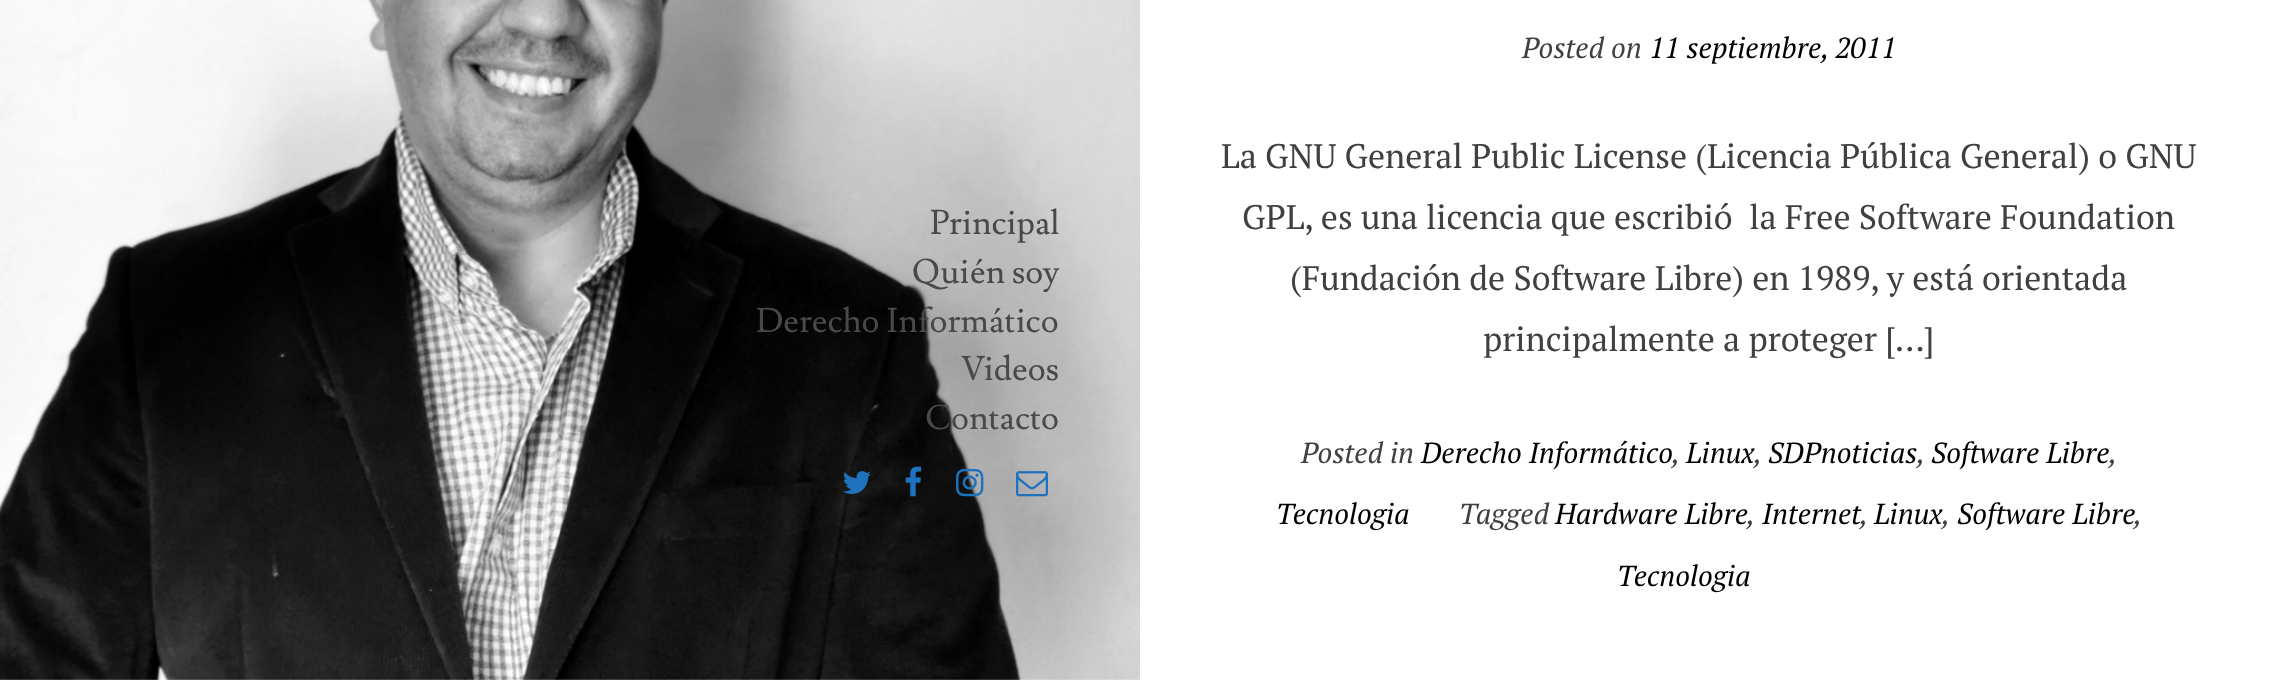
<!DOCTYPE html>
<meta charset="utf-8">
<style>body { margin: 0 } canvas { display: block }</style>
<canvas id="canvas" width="2277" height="680"></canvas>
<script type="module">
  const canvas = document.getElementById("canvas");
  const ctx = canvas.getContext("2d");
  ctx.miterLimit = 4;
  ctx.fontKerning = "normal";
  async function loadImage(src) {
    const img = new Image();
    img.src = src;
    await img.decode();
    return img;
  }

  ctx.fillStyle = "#ffffff";
  ctx.fillRect(0, 0, 2277, 680);
  ctx.drawImage(await loadImage("img1.png"), 0, 0, 1140, 680);
  ctx.font = "34px Lusitana";
  ctx.fillStyle = "#494949";
  ctx.fillText("Principal", 930, 234);
  ctx.fillText("Quién soy", 912, 283);
  ctx.fillText("Derecho Informático", 756, 332);
  ctx.fillText("Videos", 961, 380);
  ctx.fillText("Contacto", 925, 429);
  ctx.drawImage(await loadImage("img2.png"), 843, 471, 28, 23);
  ctx.drawImage(await loadImage("img3.png"), 905, 466, 17, 31);
  ctx.drawImage(await loadImage("img4.png"), 956, 468, 28, 29);
  ctx.drawImage(await loadImage("img5.png"), 1016, 471, 32, 26);
  ctx.font = "italic 29px PT Serif";
  ctx.fillStyle = "#404040";
  ctx.fillText("Posted on", 1522, 58);
  ctx.fillStyle = "#000000";
  ctx.fillText("11 septiembre, 2011", 1649, 58);
  ctx.font = "34px PT Serif";
  ctx.fillStyle = "#404040";
  ctx.fillText("La GNU General Public License (Licencia Pública General) o GNU", 1221, 168);
  ctx.fillText("GPL, es una licencia que escribió  la Free Software Foundation", 1242, 229);
  ctx.fillText("(Fundación de Software Libre) en 1989, y está orientada", 1290, 290);
  ctx.fillText("principalmente a proteger […]", 1483, 351);
  ctx.font = "italic 29px PT Serif";
  ctx.fillText("Posted in", 1301, 463);
  ctx.fillStyle = "#000000";
  ctx.fillText("Derecho Informático", 1421, 463);
  ctx.fillStyle = "#404040";
  ctx.fillText(",", 1672, 463);
  ctx.fillStyle = "#000000";
  ctx.fillText("Linux", 1686, 463);
  ctx.fillStyle = "#404040";
  ctx.fillText(",", 1754, 463);
  ctx.fillStyle = "#000000";
  ctx.fillText("SDPnoticias", 1768, 463);
  ctx.fillStyle = "#404040";
  ctx.fillText(",", 1917, 463);
  ctx.fillStyle = "#000000";
  ctx.fillText("Software Libre", 1931, 463);
  ctx.fillStyle = "#404040";
  ctx.fillText(",", 2109, 463);
  ctx.fillStyle = "#000000";
  ctx.fillText("Tecnologia", 1276, 524);
  ctx.fillStyle = "#404040";
  ctx.fillText("Tagged", 1459, 524);
  ctx.fillStyle = "#000000";
  ctx.fillText("Hardware Libre", 1555, 524);
  ctx.fillStyle = "#404040";
  ctx.fillText(",", 1747, 524);
  ctx.fillStyle = "#000000";
  ctx.fillText("Internet", 1762, 524);
  ctx.fillStyle = "#404040";
  ctx.fillText(",", 1860, 524);
  ctx.fillStyle = "#000000";
  ctx.fillText("Linux", 1874, 524);
  ctx.fillStyle = "#404040";
  ctx.fillText(",", 1942, 524);
  ctx.fillStyle = "#000000";
  ctx.fillText("Software Libre", 1957, 524);
  ctx.fillStyle = "#404040";
  ctx.fillText(",", 2134, 524);
  ctx.fillStyle = "#000000";
  ctx.fillText("Tecnologia", 1617, 586);
</script>
